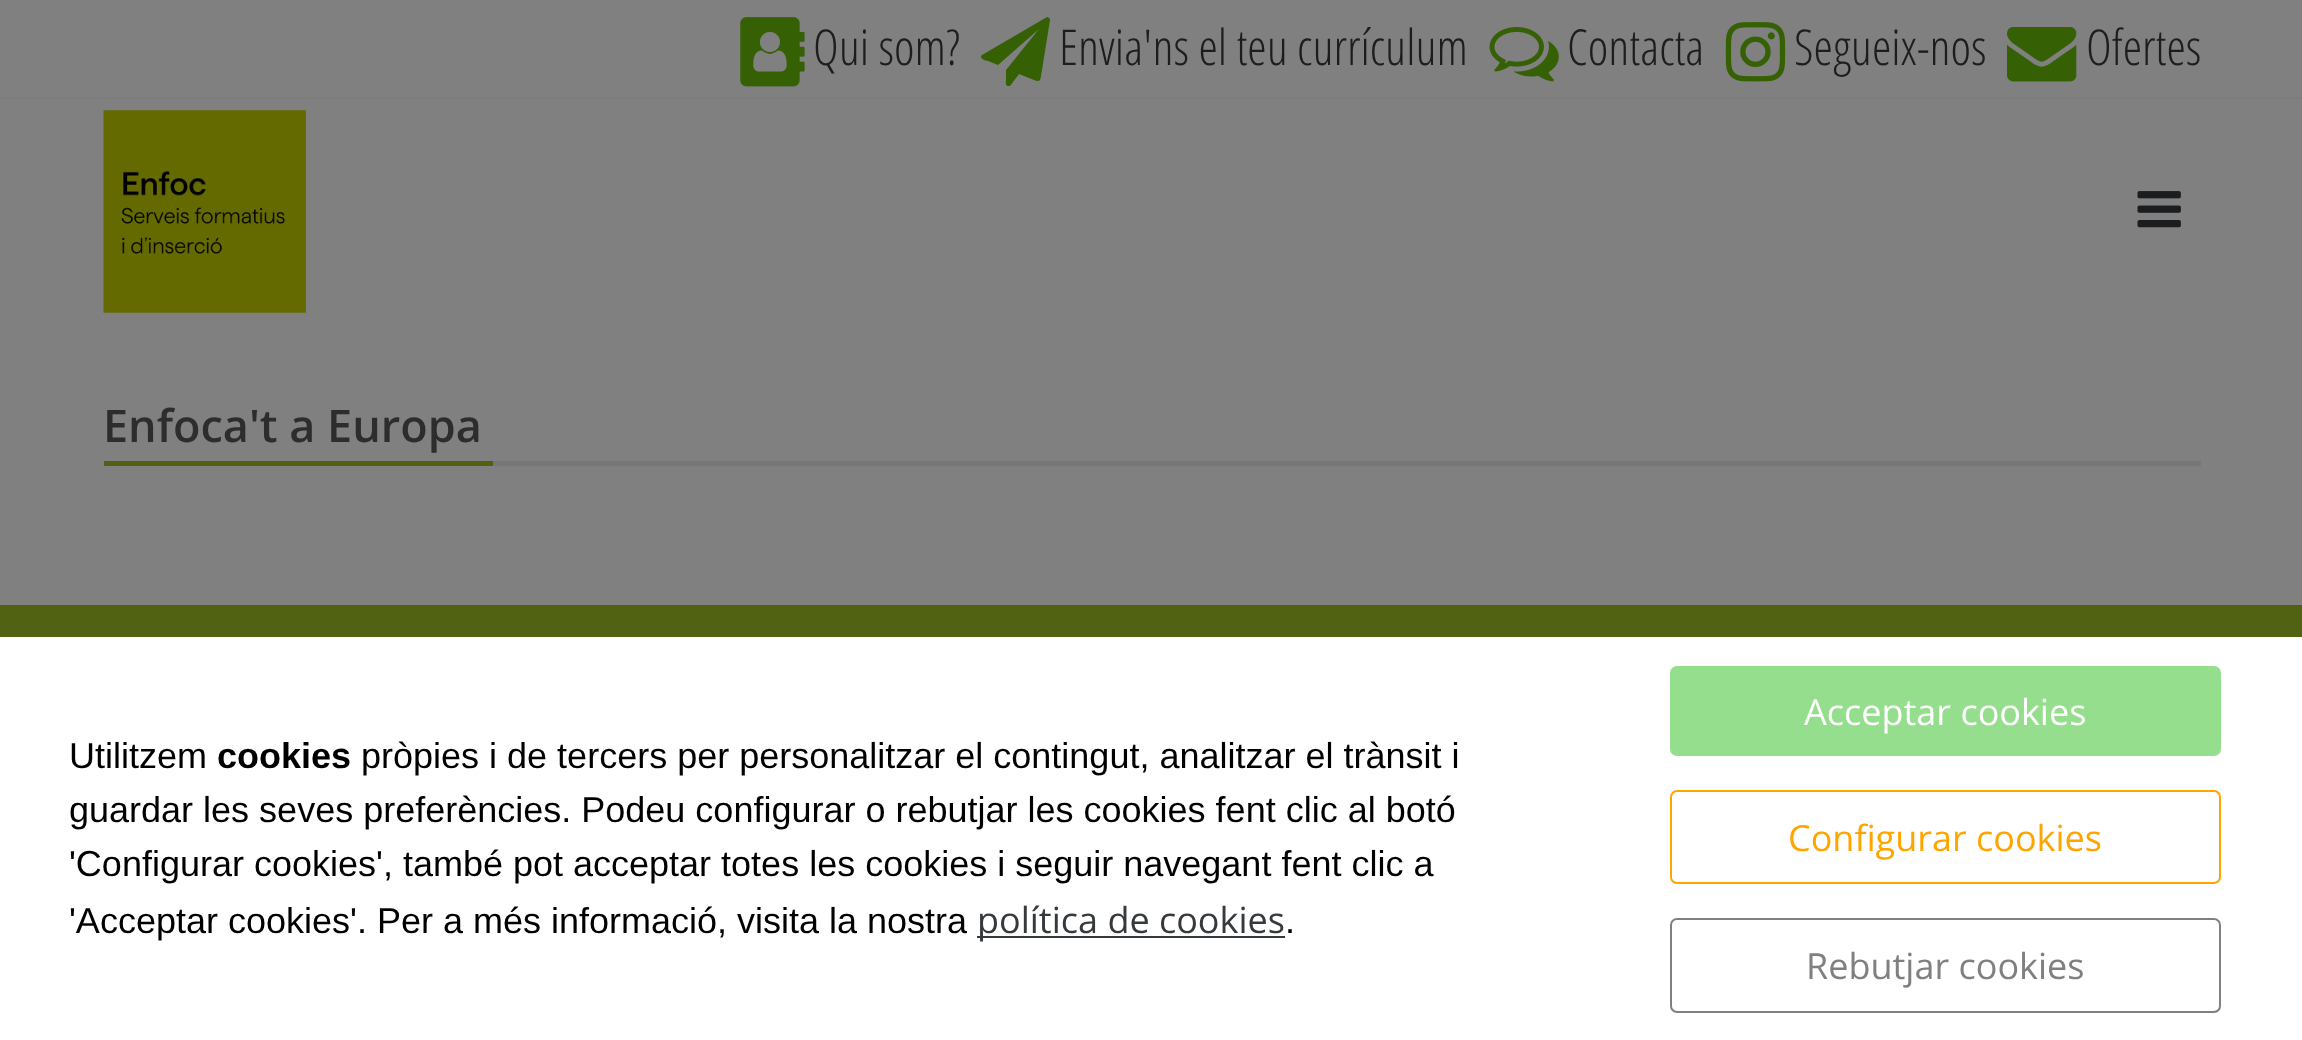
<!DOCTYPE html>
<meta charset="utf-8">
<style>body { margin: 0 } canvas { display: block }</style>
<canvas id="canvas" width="2302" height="1040"></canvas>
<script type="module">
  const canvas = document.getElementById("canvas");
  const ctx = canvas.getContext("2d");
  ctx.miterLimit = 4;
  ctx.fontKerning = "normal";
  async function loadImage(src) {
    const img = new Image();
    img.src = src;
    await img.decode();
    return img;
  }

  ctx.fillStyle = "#808080";
  ctx.fillRect(0, 0, 2302, 1040);
  ctx.fillStyle = "#7d7d7d";
  ctx.fillRect(0, 97, 2302, 2);
  ctx.drawImage(await loadImage("img1.png"), 740, 17, 65, 70);
  ctx.font = "300 49.5px Open Sans Condensed";
  ctx.fillStyle = "#1c1d1e";
  ctx.fillText("Qui som?", 813, 65);
  ctx.fillStyle = "#356004";
  ctx.beginPath();
  ctx.moveTo(1049, 18);
  ctx.bezierCurveTo(1050, 18, 1050, 19, 1050, 20);
  ctx.lineTo(1042, 70);
  ctx.bezierCurveTo(1040, 79, 1042, 83, 1034, 80);
  ctx.lineTo(1019, 74);
  ctx.lineTo(1010, 86);
  ctx.lineTo(1008, 86);
  ctx.bezierCurveTo(1005, 86, 1006, 81, 1006, 79);
  ctx.lineTo(1006, 70);
  ctx.lineTo(1039, 29);
  ctx.lineTo(998, 65);
  ctx.lineTo(988, 61);
  ctx.bezierCurveTo(986, 61, 978, 58, 982, 55);
  ctx.lineTo(1047, 17);
  ctx.bezierCurveTo(1047, 17, 1048, 17, 1049, 18);
  ctx.closePath();
  ctx.fill();
  ctx.fillStyle = "#1c1d1e";
  ctx.fillText("Envia'ns el teu currículum", 1059, 65);
  ctx.drawImage(await loadImage("img2.png"), 1489, 27, 70, 55);
  ctx.fillText("Contacta", 1567, 65);
  ctx.drawImage(await loadImage("img3.png"), 1725, 22, 61, 60);
  ctx.fillText("Segueix-nos", 1794, 65);
  ctx.drawImage(await loadImage("img4.png"), 2007, 27, 70, 55);
  ctx.fillText("Ofertes", 2086, 65);
  ctx.drawImage(await loadImage("img5.png"), 103, 110, 203, 203);
  ctx.drawImage(await loadImage("img6.png"), 2137, 191, 44, 37);
  ctx.fillStyle = "#777777";
  ctx.fillRect(493, 461, 1708, 5);
  ctx.fillStyle = "#506212";
  ctx.fillRect(104, 461, 389, 5);
  ctx.font = "600 45px Open Sans";
  ctx.fillStyle = "#2d2d2d";
  ctx.fillText("Enfoca't a Europa", 103, 442);
  ctx.fillStyle = "#516313";
  ctx.fillRect(0, 605, 2302, 32);
  ctx.fillStyle = "#ffffff";
  ctx.fillRect(0, 637, 2302, 403);
  ctx.font = "36px Liberation Sans";
  ctx.fillStyle = "#000000";
  ctx.fillText("Utilitzem", 69, 768);
  ctx.font = "bold 36px Liberation Sans";
  ctx.fillText("cookies", 217, 768);
  ctx.font = "36px Liberation Sans";
  ctx.fillText("pròpies i de tercers per personalitzar el contingut, analitzar el trànsit i", 361, 768);
  ctx.fillText("guardar les seves preferències. Podeu configurar o rebutjar les cookies fent clic al botó", 69, 822);
  ctx.fillText("'Configurar cookies', també pot acceptar totes les cookies i seguir navegant fent clic a", 69, 876);
  ctx.fillText("'Acceptar cookies'. Per a més informació, visita la nostra", 69, 933);
  ctx.fillStyle = "#373a3c";
  ctx.fillRect(977, 936, 308, 2);
  ctx.font = "36px Open Sans";
  ctx.fillText("política de cookies", 977, 933);
  ctx.font = "36px Liberation Sans";
  ctx.fillStyle = "#000000";
  ctx.fillText(".", 1285, 933);
  ctx.fillStyle = "#95de8e";
  ctx.beginPath();
  ctx.roundRect(1670, 666, 551, 90, 7);
  ctx.fill();
  ctx.font = "36px Open Sans";
  ctx.fillStyle = "#ffffff";
  ctx.fillText("Acceptar cookies", 1804, 725);
  ctx.beginPath();
  ctx.roundRect(1671, 791, 549, 92, 6);
  ctx.strokeStyle = "#ffa500";
  ctx.lineWidth = 2;
  ctx.stroke();
  ctx.fillStyle = "#ffa500";
  ctx.fillText("Configurar cookies", 1788, 851);
  ctx.beginPath();
  ctx.roundRect(1671, 919, 549, 93, 6);
  ctx.strokeStyle = "#808080";
  ctx.stroke();
  ctx.fillStyle = "#808080";
  ctx.fillText("Rebutjar cookies", 1806, 979);
</script>
